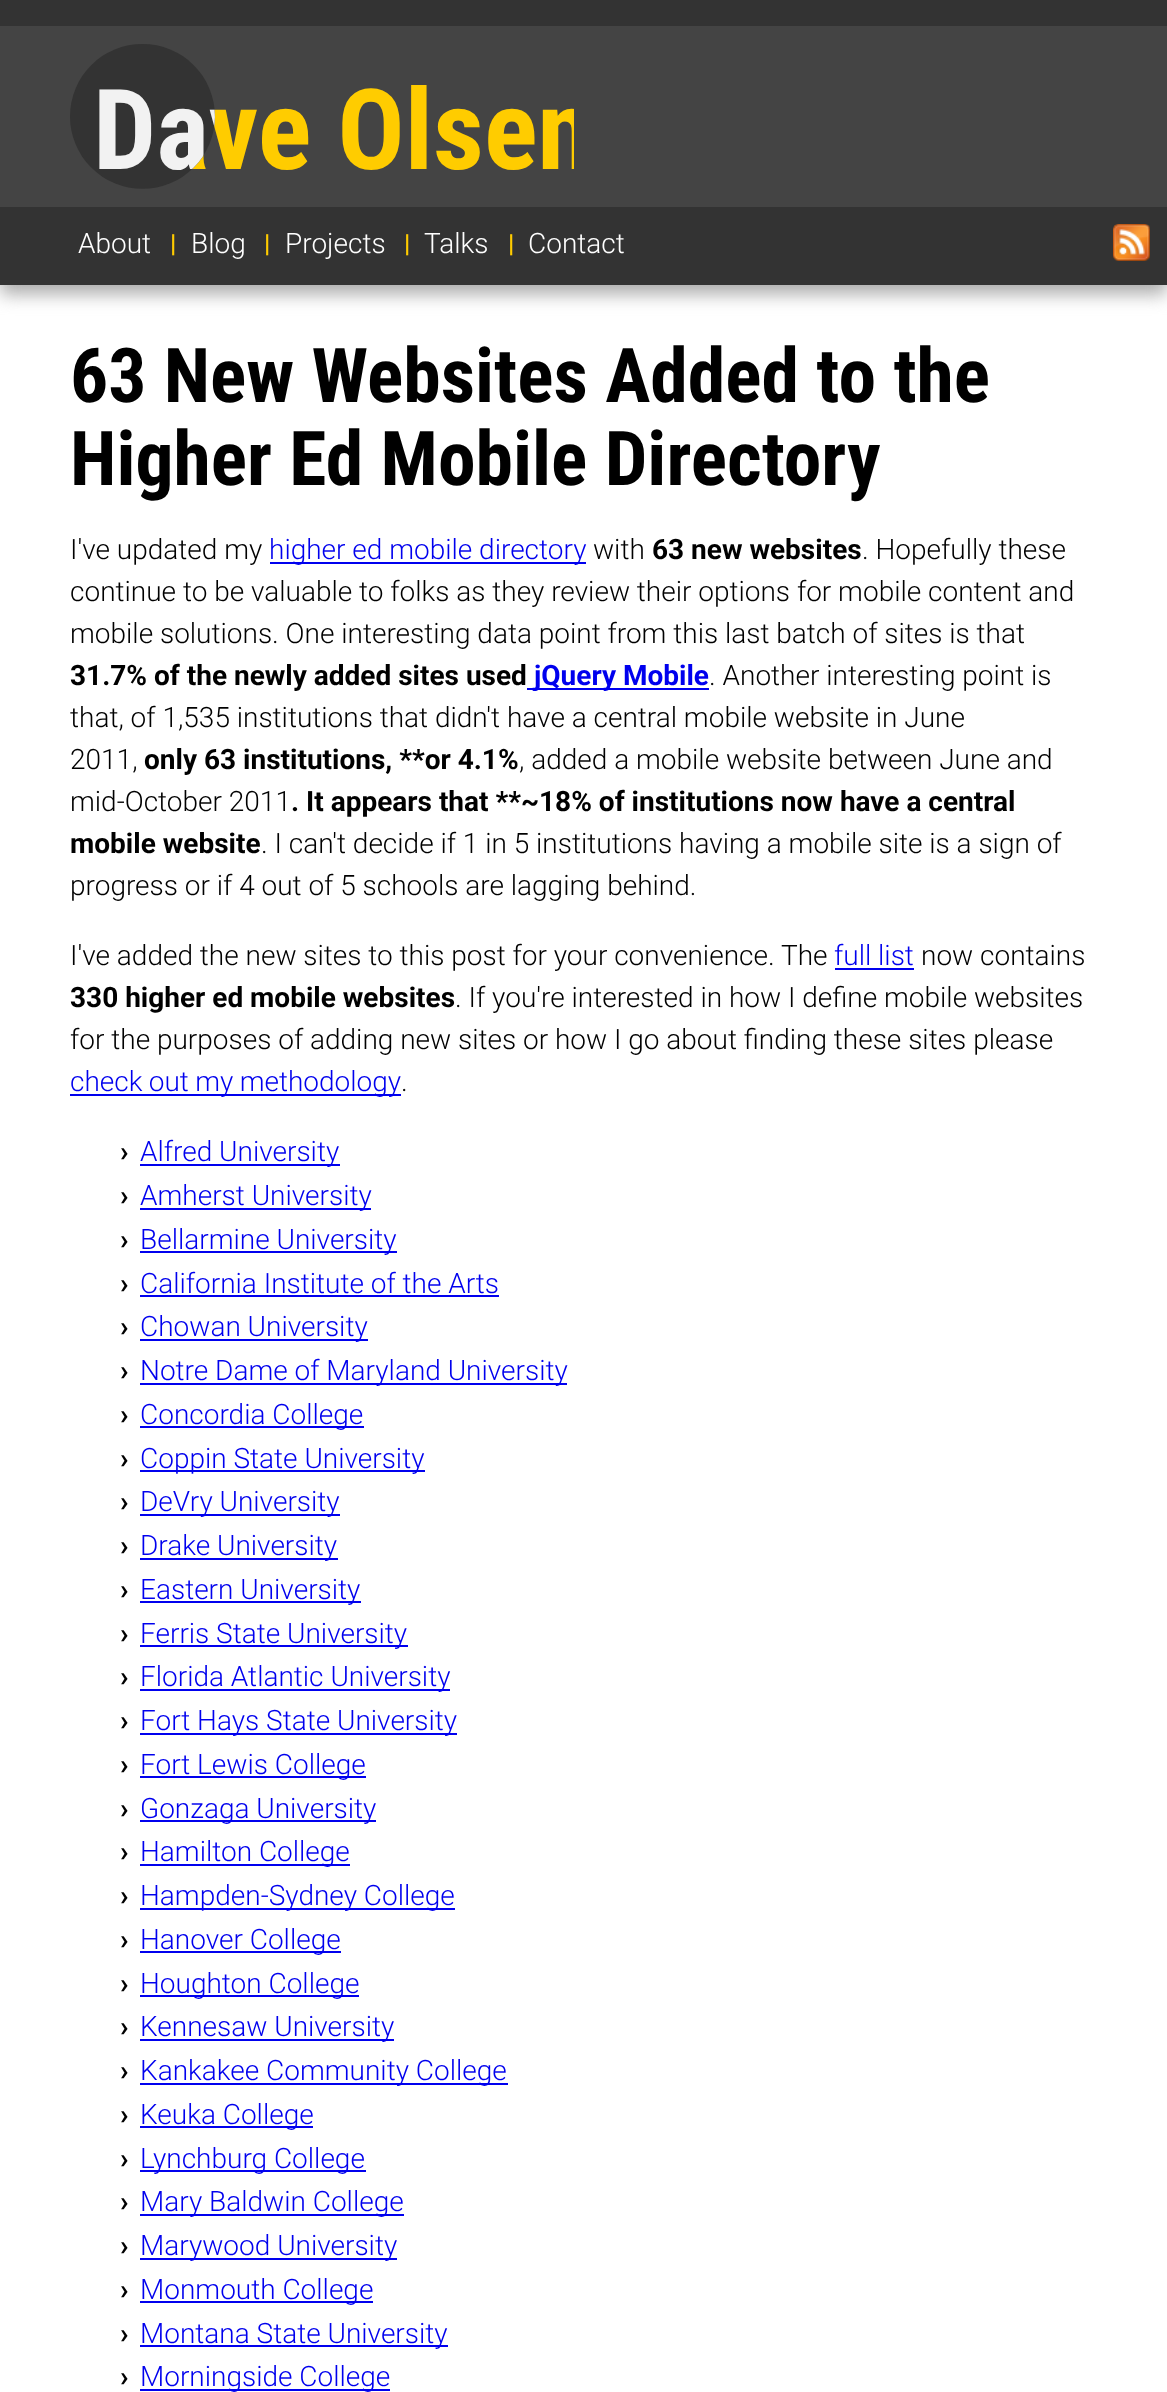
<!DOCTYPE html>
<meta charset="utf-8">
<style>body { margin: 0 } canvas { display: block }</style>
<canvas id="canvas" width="1167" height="2392"></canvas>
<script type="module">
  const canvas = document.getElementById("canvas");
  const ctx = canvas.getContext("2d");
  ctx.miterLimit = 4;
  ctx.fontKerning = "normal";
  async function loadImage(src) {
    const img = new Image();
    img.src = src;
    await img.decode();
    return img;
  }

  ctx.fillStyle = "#333333";
  ctx.fillRect(0, 0, 1167, 2392);
  ctx.fillStyle = "#ffffff";
  ctx.fillRect(0, 285, 1167, 2107);
  ctx.fillStyle = "#aaaaaa";
  ctx.filter = "blur(9px)";
  ctx.beginPath();
  ctx.rect(0, 215, 1167, 79);
  ctx.fill();
  ctx.filter = "none";
  ctx.fillStyle = "#444444";
  ctx.fillRect(0, 26, 1167, 181);
  ctx.drawImage(await loadImage("img1.png"), 70, 44, 504, 145);
  ctx.fillStyle = "#333333";
  ctx.fillRect(0, 207, 1167, 78);
  ctx.font = "300 28px Roboto";
  ctx.fillStyle = "#ffffff";
  ctx.fillText("About", 78, 253);
  ctx.font = "bold 25px Roboto";
  ctx.fillStyle = "#ffcc00";
  ctx.fillText("|", 170, 252);
  ctx.font = "300 28px Roboto";
  ctx.fillStyle = "#ffffff";
  ctx.fillText("Blog", 191, 253);
  ctx.font = "bold 25px Roboto";
  ctx.fillStyle = "#ffcc00";
  ctx.fillText("|", 264, 252);
  ctx.font = "300 28px Roboto";
  ctx.fillStyle = "#ffffff";
  ctx.fillText("Projects", 285, 253);
  ctx.font = "bold 25px Roboto";
  ctx.fillStyle = "#ffcc00";
  ctx.fillText("|", 404, 252);
  ctx.font = "300 28px Roboto";
  ctx.fillStyle = "#ffffff";
  ctx.fillText("Talks", 424, 253);
  ctx.font = "bold 25px Roboto";
  ctx.fillStyle = "#ffcc00";
  ctx.fillText("|", 508, 252);
  ctx.font = "300 28px Roboto";
  ctx.fillStyle = "#ffffff";
  ctx.fillText("Contact", 528, 253);
  ctx.drawImage(await loadImage("img2.png"), 1113, 224, 37, 37);
  ctx.font = "bold 75.6px Roboto Condensed";
  ctx.fillStyle = "#000000";
  ctx.fillText("63 New Websites Added to the", 70, 402);
  ctx.fillText("Higher Ed Mobile Directory", 70, 485);
  ctx.font = "300 28px Roboto";
  ctx.fillText("I've updated my", 70, 559);
  ctx.fillStyle = "#0000ee";
  ctx.fillRect(270, 562, 316, 2);
  ctx.fillText("higher ed mobile directory", 269, 559);
  ctx.fillStyle = "#000000";
  ctx.fillText("with", 593, 559);
  ctx.font = "bold 28px Roboto";
  ctx.fillText("63 new websites", 652, 559);
  ctx.font = "300 28px Roboto";
  ctx.fillText(". Hopefully these", 862, 559);
  ctx.fillText("continue to be valuable to folks as they review their options for mobile content and", 70, 601);
  ctx.fillText("mobile solutions. One interesting data point from this last batch of sites is that", 70, 643);
  ctx.font = "bold 28px Roboto";
  ctx.fillText("31.7% of the newly added sites used", 70, 685);
  ctx.fillStyle = "#0000ee";
  ctx.fillRect(527, 688, 182, 2);
  ctx.fillText("jQuery Mobile", 534, 685);
  ctx.font = "300 28px Roboto";
  ctx.fillStyle = "#000000";
  ctx.fillText(". Another interesting point is", 709, 685);
  ctx.fillText("that, of 1,535 institutions that didn't have a central mobile website in June", 70, 727);
  ctx.fillText("2011,", 70, 769);
  ctx.font = "bold 28px Roboto";
  ctx.fillText("only 63 institutions, **or 4.1%", 144, 769);
  ctx.font = "300 28px Roboto";
  ctx.fillText(", added a mobile website between June and", 519, 769);
  ctx.fillText("mid-October 2011", 70, 811);
  ctx.font = "bold 28px Roboto";
  ctx.fillText(". It appears that **~18% of institutions now have a central", 291, 811);
  ctx.fillText("mobile website", 70, 853);
  ctx.font = "300 28px Roboto";
  ctx.fillText(". I can't decide if 1 in 5 institutions having a mobile site is a sign of", 261, 853);
  ctx.fillText("progress or if 4 out of 5 schools are lagging behind.", 70, 895);
  ctx.fillText("I've added the new sites to this post for your convenience. The", 70, 965);
  ctx.fillStyle = "#0000ee";
  ctx.fillText("full list", 834, 965);
  ctx.fillRect(835, 968, 79, 2);
  ctx.fillStyle = "#000000";
  ctx.fillText("now contains", 921, 965);
  ctx.font = "bold 28px Roboto";
  ctx.fillText("330 higher ed mobile websites", 70, 1007);
  ctx.font = "300 28px Roboto";
  ctx.fillText(". If you're interested in how I define mobile websites", 455, 1007);
  ctx.fillText("for the purposes of adding new sites or how I go about finding these sites please", 70, 1049);
  ctx.fillStyle = "#0000ee";
  ctx.fillRect(70, 1094, 331, 2);
  ctx.wordSpacing = "-0.5px";
  ctx.fillText("check out my methodology", 70, 1091);
  ctx.wordSpacing = "0px";
  ctx.fillStyle = "#000000";
  ctx.fillText(".", 401, 1091);
  ctx.font = "bold 28px Roboto";
  ctx.fillText("›", 120, 1161);
  ctx.fillStyle = "#0000ee";
  ctx.fillRect(140, 1164, 200, 2);
  ctx.font = "300 28px Roboto";
  ctx.fillText("Alfred University", 140, 1161);
  ctx.font = "bold 28px Roboto";
  ctx.fillStyle = "#000000";
  ctx.fillText("›", 120, 1205);
  ctx.fillStyle = "#0000ee";
  ctx.fillRect(140, 1208, 231, 2);
  ctx.font = "300 28px Roboto";
  ctx.fillText("Amherst University", 140, 1205);
  ctx.font = "bold 28px Roboto";
  ctx.fillStyle = "#000000";
  ctx.fillText("›", 120, 1249);
  ctx.fillStyle = "#0000ee";
  ctx.fillRect(140, 1251, 257, 2);
  ctx.font = "300 28px Roboto";
  ctx.fillText("Bellarmine University", 140, 1249);
  ctx.font = "bold 28px Roboto";
  ctx.fillStyle = "#000000";
  ctx.fillText("›", 120, 1293);
  ctx.font = "300 28px Roboto";
  ctx.fillStyle = "#0000ee";
  ctx.fillText("California Institute of the Arts", 140, 1293);
  ctx.fillRect(140, 1295, 359, 2);
  ctx.font = "bold 28px Roboto";
  ctx.fillStyle = "#000000";
  ctx.fillText("›", 120, 1336);
  ctx.fillStyle = "#0000ee";
  ctx.fillRect(140, 1339, 228, 2);
  ctx.font = "300 28px Roboto";
  ctx.fillText("Chowan University", 140, 1336);
  ctx.font = "bold 28px Roboto";
  ctx.fillStyle = "#000000";
  ctx.fillText("›", 120, 1380);
  ctx.fillStyle = "#0000ee";
  ctx.fillRect(140, 1383, 427, 2);
  ctx.font = "300 28px Roboto";
  ctx.fillText("Notre Dame of Maryland University", 140, 1380);
  ctx.font = "bold 28px Roboto";
  ctx.fillStyle = "#000000";
  ctx.fillText("›", 120, 1424);
  ctx.fillStyle = "#0000ee";
  ctx.fillRect(140, 1426, 224, 2);
  ctx.font = "300 28px Roboto";
  ctx.fillText("Concordia College", 140, 1424);
  ctx.font = "bold 28px Roboto";
  ctx.fillStyle = "#000000";
  ctx.fillText("›", 120, 1468);
  ctx.fillStyle = "#0000ee";
  ctx.fillRect(140, 1470, 285, 2);
  ctx.font = "300 28px Roboto";
  ctx.fillText("Coppin State University", 140, 1468);
  ctx.font = "bold 28px Roboto";
  ctx.fillStyle = "#000000";
  ctx.fillText("›", 120, 1511);
  ctx.fillStyle = "#0000ee";
  ctx.fillRect(140, 1514, 200, 2);
  ctx.font = "300 28px Roboto";
  ctx.fillText("DeVry University", 140, 1511);
  ctx.font = "bold 28px Roboto";
  ctx.fillStyle = "#000000";
  ctx.fillText("›", 120, 1555);
  ctx.fillStyle = "#0000ee";
  ctx.fillRect(140, 1558, 198, 2);
  ctx.font = "300 28px Roboto";
  ctx.fillText("Drake University", 140, 1555);
  ctx.font = "bold 28px Roboto";
  ctx.fillStyle = "#000000";
  ctx.fillText("›", 120, 1599);
  ctx.fillStyle = "#0000ee";
  ctx.fillRect(140, 1601, 221, 2);
  ctx.font = "300 28px Roboto";
  ctx.fillText("Eastern University", 140, 1599);
  ctx.font = "bold 28px Roboto";
  ctx.fillStyle = "#000000";
  ctx.fillText("›", 120, 1643);
  ctx.fillStyle = "#0000ee";
  ctx.fillRect(140, 1645, 268, 2);
  ctx.font = "300 28px Roboto";
  ctx.fillText("Ferris State University", 140, 1643);
  ctx.font = "bold 28px Roboto";
  ctx.fillStyle = "#000000";
  ctx.fillText("›", 120, 1686);
  ctx.fillStyle = "#0000ee";
  ctx.fillRect(140, 1689, 310, 2);
  ctx.font = "300 28px Roboto";
  ctx.fillText("Florida Atlantic University", 140, 1686);
  ctx.font = "bold 28px Roboto";
  ctx.fillStyle = "#000000";
  ctx.fillText("›", 120, 1730);
  ctx.fillStyle = "#0000ee";
  ctx.fillRect(140, 1733, 317, 2);
  ctx.font = "300 28px Roboto";
  ctx.fillText("Fort Hays State University", 140, 1730);
  ctx.font = "bold 28px Roboto";
  ctx.fillStyle = "#000000";
  ctx.fillText("›", 120, 1774);
  ctx.fillStyle = "#0000ee";
  ctx.fillRect(140, 1776, 226, 2);
  ctx.font = "300 28px Roboto";
  ctx.fillText("Fort Lewis College", 140, 1774);
  ctx.font = "bold 28px Roboto";
  ctx.fillStyle = "#000000";
  ctx.fillText("›", 120, 1818);
  ctx.fillStyle = "#0000ee";
  ctx.fillRect(140, 1820, 236, 2);
  ctx.font = "300 28px Roboto";
  ctx.fillText("Gonzaga University", 140, 1818);
  ctx.font = "bold 28px Roboto";
  ctx.fillStyle = "#000000";
  ctx.fillText("›", 120, 1861);
  ctx.fillStyle = "#0000ee";
  ctx.fillRect(140, 1864, 210, 2);
  ctx.font = "300 28px Roboto";
  ctx.fillText("Hamilton College", 140, 1861);
  ctx.font = "bold 28px Roboto";
  ctx.fillStyle = "#000000";
  ctx.fillText("›", 120, 1905);
  ctx.fillStyle = "#0000ee";
  ctx.fillRect(140, 1908, 315, 2);
  ctx.font = "300 28px Roboto";
  ctx.fillText("Hampden-Sydney College", 140, 1905);
  ctx.font = "bold 28px Roboto";
  ctx.fillStyle = "#000000";
  ctx.fillText("›", 120, 1949);
  ctx.fillStyle = "#0000ee";
  ctx.fillRect(140, 1951, 201, 2);
  ctx.font = "300 28px Roboto";
  ctx.fillText("Hanover College", 140, 1949);
  ctx.font = "bold 28px Roboto";
  ctx.fillStyle = "#000000";
  ctx.fillText("›", 120, 1993);
  ctx.fillStyle = "#0000ee";
  ctx.fillRect(140, 1995, 219, 2);
  ctx.font = "300 28px Roboto";
  ctx.fillText("Houghton College", 140, 1993);
  ctx.font = "bold 28px Roboto";
  ctx.fillStyle = "#000000";
  ctx.fillText("›", 120, 2036);
  ctx.fillStyle = "#0000ee";
  ctx.fillRect(140, 2039, 254, 2);
  ctx.font = "300 28px Roboto";
  ctx.fillText("Kennesaw University", 140, 2036);
  ctx.font = "bold 28px Roboto";
  ctx.fillStyle = "#000000";
  ctx.fillText("›", 120, 2080);
  ctx.fillStyle = "#0000ee";
  ctx.fillRect(140, 2083, 368, 2);
  ctx.font = "300 28px Roboto";
  ctx.fillText("Kankakee Community College", 140, 2080);
  ctx.font = "bold 28px Roboto";
  ctx.fillStyle = "#000000";
  ctx.fillText("›", 120, 2124);
  ctx.fillStyle = "#0000ee";
  ctx.fillRect(140, 2126, 173, 2);
  ctx.font = "300 28px Roboto";
  ctx.fillText("Keuka College", 140, 2124);
  ctx.font = "bold 28px Roboto";
  ctx.fillStyle = "#000000";
  ctx.fillText("›", 120, 2168);
  ctx.fillStyle = "#0000ee";
  ctx.fillRect(140, 2170, 226, 2);
  ctx.font = "300 28px Roboto";
  ctx.fillText("Lynchburg College", 140, 2168);
  ctx.font = "bold 28px Roboto";
  ctx.fillStyle = "#000000";
  ctx.fillText("›", 120, 2211);
  ctx.fillStyle = "#0000ee";
  ctx.fillRect(140, 2214, 264, 2);
  ctx.font = "300 28px Roboto";
  ctx.fillText("Mary Baldwin College", 140, 2211);
  ctx.font = "bold 28px Roboto";
  ctx.fillStyle = "#000000";
  ctx.fillText("›", 120, 2255);
  ctx.fillStyle = "#0000ee";
  ctx.fillRect(140, 2258, 257, 2);
  ctx.font = "300 28px Roboto";
  ctx.fillText("Marywood University", 140, 2255);
  ctx.font = "bold 28px Roboto";
  ctx.fillStyle = "#000000";
  ctx.fillText("›", 120, 2299);
  ctx.fillStyle = "#0000ee";
  ctx.fillRect(140, 2301, 233, 2);
  ctx.font = "300 28px Roboto";
  ctx.fillText("Monmouth College", 140, 2299);
  ctx.font = "bold 28px Roboto";
  ctx.fillStyle = "#000000";
  ctx.fillText("›", 120, 2343);
  ctx.fillStyle = "#0000ee";
  ctx.fillRect(140, 2345, 308, 2);
  ctx.font = "300 28px Roboto";
  ctx.fillText("Montana State University", 140, 2343);
  ctx.font = "bold 28px Roboto";
  ctx.fillStyle = "#000000";
  ctx.fillText("›", 120, 2386);
  ctx.fillStyle = "#0000ee";
  ctx.fillRect(140, 2389, 250, 2);
  ctx.font = "300 28px Roboto";
  ctx.fillText("Morningside College", 140, 2386);
</script>
